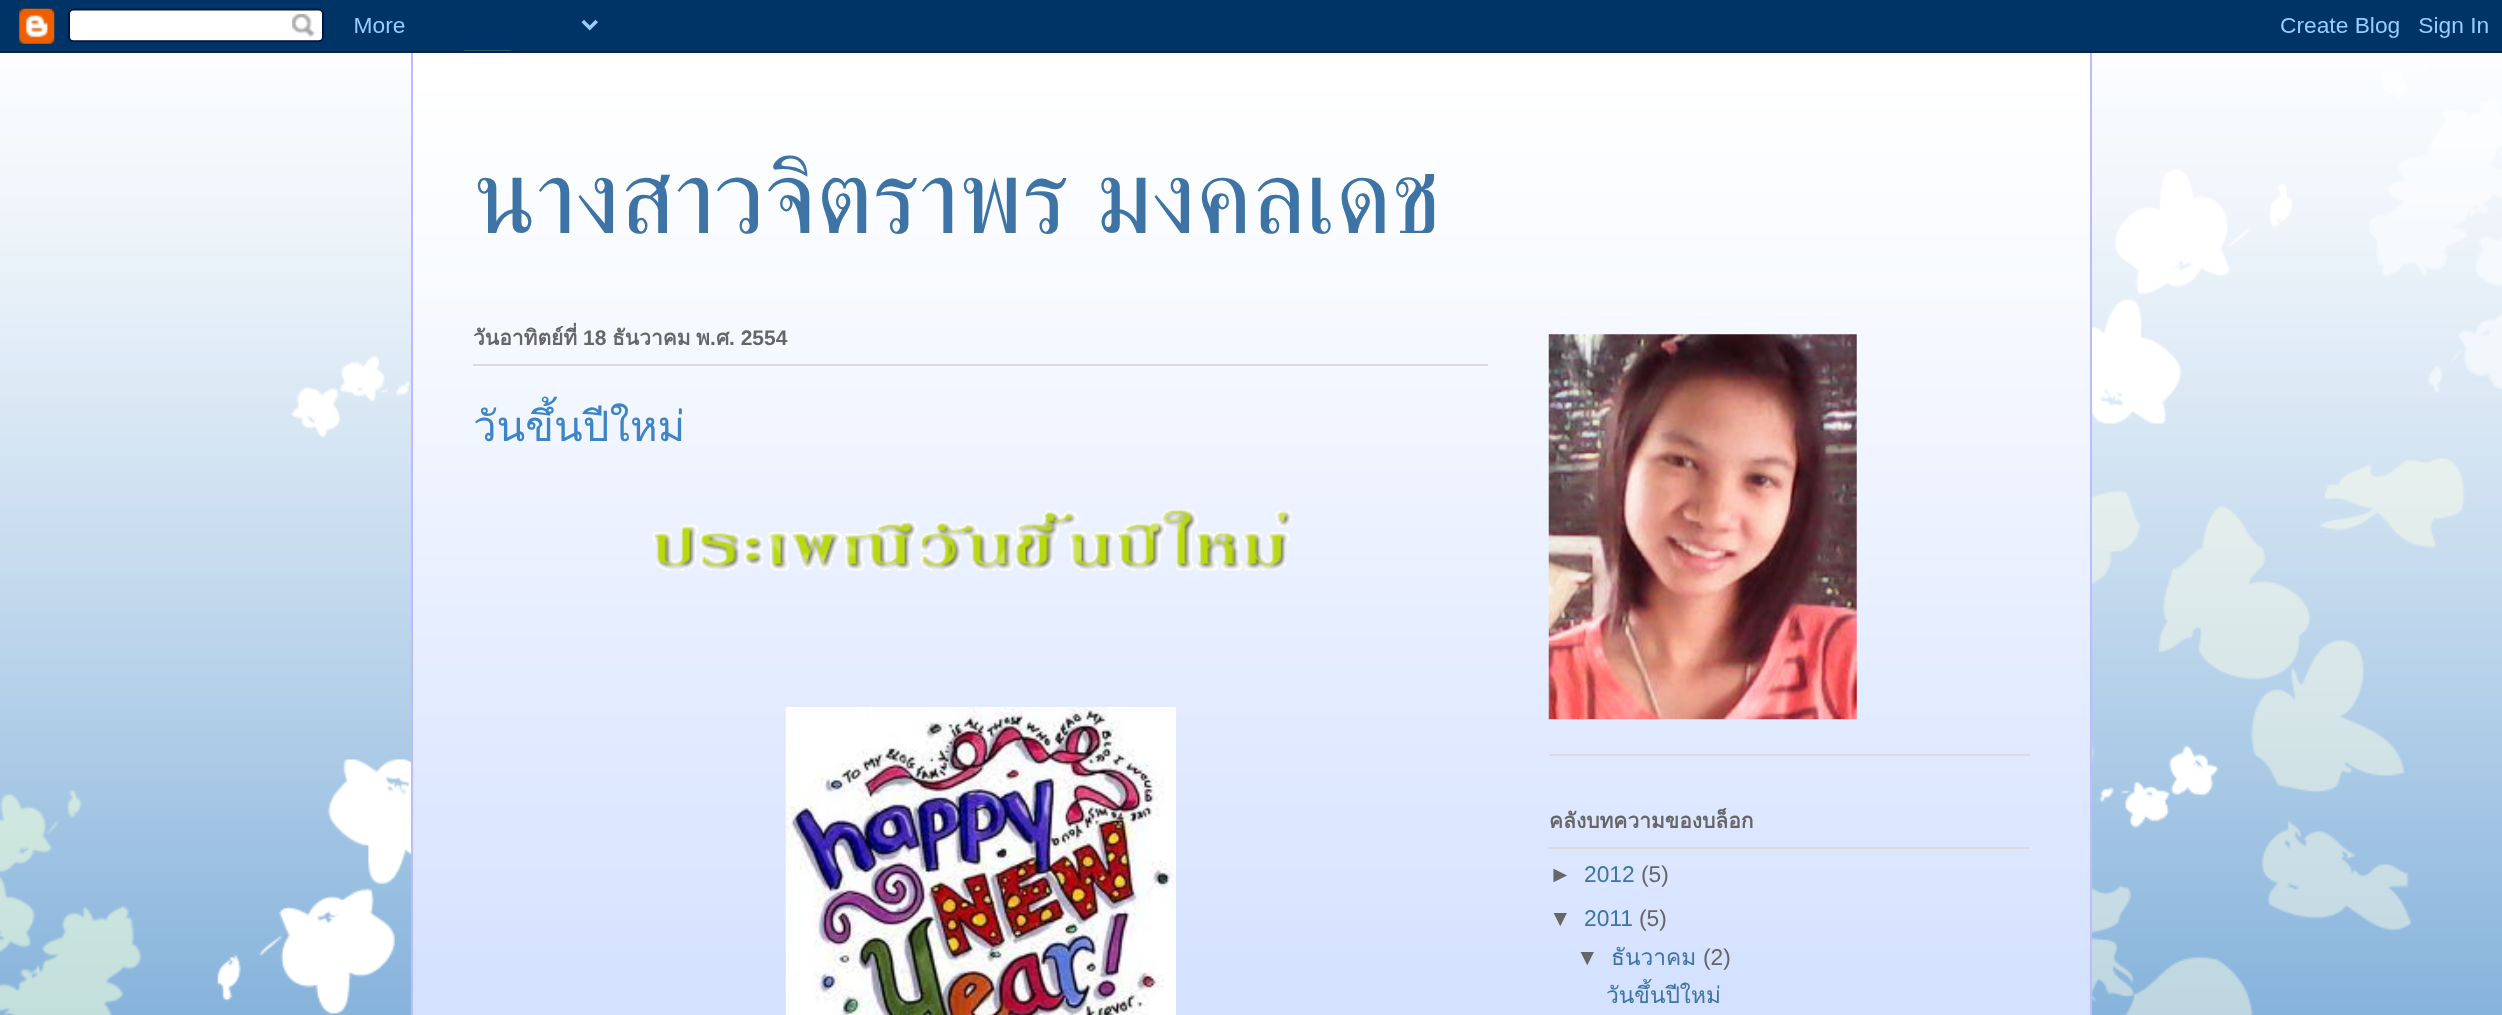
<!DOCTYPE html>
<meta charset="utf-8">
<style>body { margin: 0 } canvas { display: block }</style>
<canvas id="canvas" width="2502" height="1015"></canvas>
<script type="module">
  const canvas = document.getElementById("canvas");
  const ctx = canvas.getContext("2d");
  ctx.miterLimit = 4;
  ctx.fontKerning = "normal";
  async function loadImage(src) {
    const img = new Image();
    img.src = src;
    await img.decode();
    return img;
  }

  ctx.fillStyle = "#3d85c6";
  ctx.fillRect(0, 0, 2502, 1015);
  ctx.drawImage(await loadImage("img2.png"), 0, 50, 2502, 965);
  ctx.drawImage(await loadImage("img1.png"), 0, 0, 2502, 53);
  ctx.fillStyle = "#d4e1ff";
  ctx.fillRect(413, 64, 1677, 951);
  ctx.drawImage(await loadImage("img3.png"), 413, 53, 1677, 895);
  ctx.fillStyle = "#bbbbff";
  ctx.fillRect(2090, 53, 2, 962);
  ctx.fillRect(411, 53, 2, 962);
  ctx.font = "105px FreeSerif";
  ctx.fillStyle = "#3d74a5";
  ctx.fillText("นางสาวจิตราพร มงคลเดช", 473, 233);
  ctx.fillStyle = "#dbdbdb";
  ctx.fillRect(473, 364, 1015, 2);
  ctx.font = "bold 21px Loma";
  ctx.fillStyle = "#666666";
  ctx.fillText("วันอาทิตย์ที่", 473, 345);
  ctx.font = "bold 21px Liberation Sans";
  ctx.fillText("18", 583, 345);
  ctx.font = "bold 21px Loma";
  ctx.fillText("ธันวาคม", 612, 345);
  ctx.fillText("พ", 696, 345);
  ctx.font = "bold 21px Liberation Sans";
  ctx.fillText(".", 710, 345);
  ctx.font = "bold 21px Loma";
  ctx.fillText("ศ", 716, 345);
  ctx.font = "bold 21px Liberation Sans";
  ctx.fillText(". 2554", 729, 345);
  ctx.font = "42px Loma";
  ctx.fillStyle = "#3d85c6";
  ctx.fillText("วันขึ้นปีใหม่", 473, 441);
  ctx.drawImage(await loadImage("img4.png"), 652, 509, 640, 62);
  ctx.drawImage(await loadImage("img5.png"), 785, 707, 391, 308);
  ctx.fillStyle = "#dbdbdb";
  ctx.fillRect(1549, 754, 481, 2);
  ctx.drawImage(await loadImage("img6.png"), 1548, 334, 309, 386);
  ctx.fillRect(1549, 847, 481, 2);
  ctx.font = "bold 21px Loma";
  ctx.fillStyle = "#666666";
  ctx.fillText("คลังบทความของบล็อก", 1549, 828);
  ctx.font = "22.75px Liberation Sans";
  ctx.fillText("►", 1549, 882);
  ctx.fillStyle = "#3d74a5";
  ctx.fillText("2012", 1584, 882);
  ctx.fillStyle = "#666666";
  ctx.fillText("(5)", 1641, 882);
  ctx.fillText("▼", 1549, 926);
  ctx.fillStyle = "#3d74a5";
  ctx.fillText("2011", 1584, 926);
  ctx.fillStyle = "#666666";
  ctx.fillText("(5)", 1639, 926);
  ctx.fillText("▼", 1576, 965);
  ctx.font = "22.75px Loma";
  ctx.fillStyle = "#3d74a5";
  ctx.fillText("ธันวาคม", 1611, 965);
  ctx.font = "22.75px Liberation Sans";
  ctx.fillStyle = "#666666";
  ctx.fillText("(2)", 1703, 965);
  ctx.font = "22.75px Loma";
  ctx.fillStyle = "#3d74a5";
  ctx.fillText("วันขึ้นปีใหม่", 1606, 1003);
</script>
